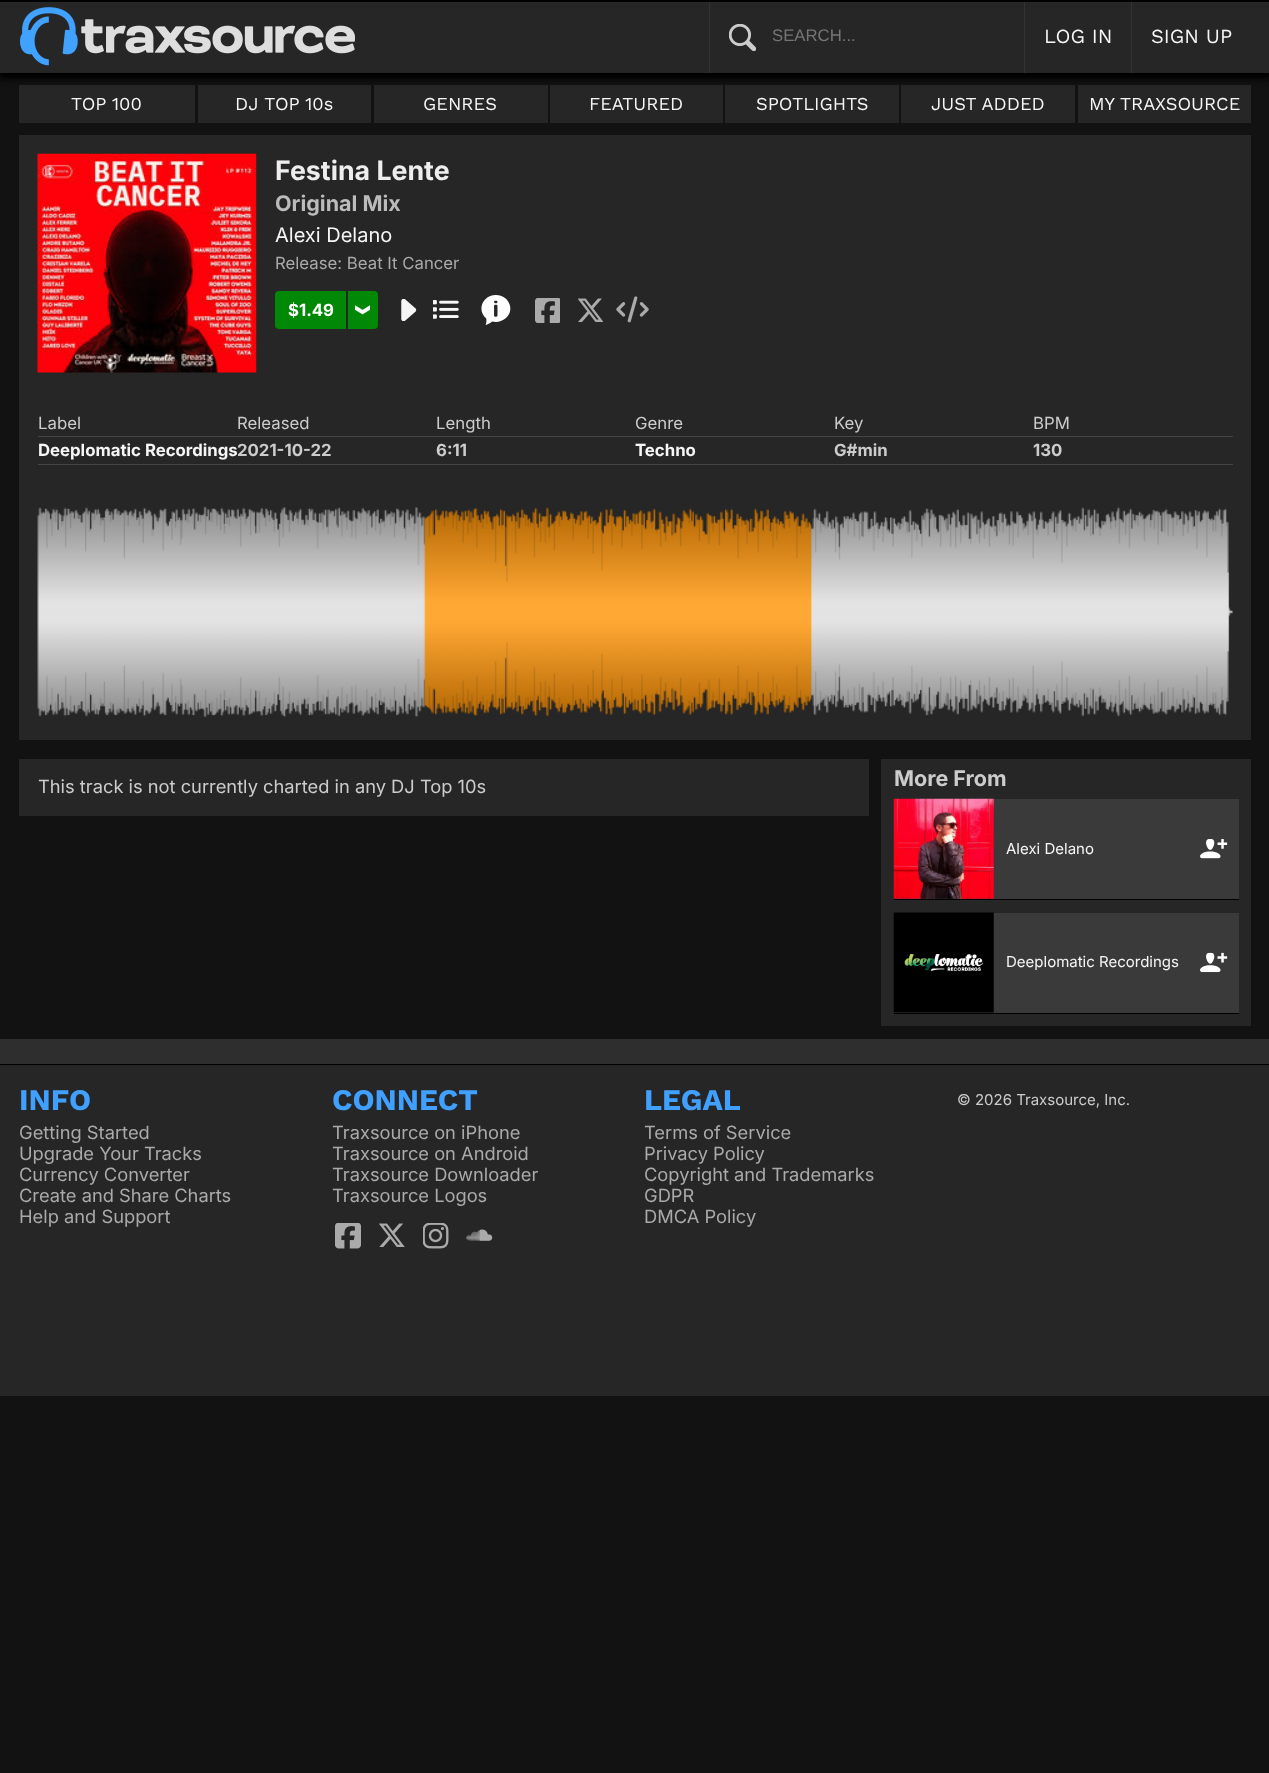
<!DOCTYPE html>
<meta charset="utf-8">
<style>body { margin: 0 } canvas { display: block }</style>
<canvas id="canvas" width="1269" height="1773"></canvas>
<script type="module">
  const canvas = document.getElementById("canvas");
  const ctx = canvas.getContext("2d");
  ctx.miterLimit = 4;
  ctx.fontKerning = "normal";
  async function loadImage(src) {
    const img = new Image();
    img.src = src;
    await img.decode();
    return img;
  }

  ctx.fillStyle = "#121212";
  ctx.fillRect(0, 0, 1269, 1773);
  ctx.fillStyle = "#262626";
  ctx.fillRect(19, 85, 176, 38);
  ctx.fillRect(198, 85, 173, 38);
  ctx.fillRect(374, 85, 174, 38);
  ctx.fillRect(550, 85, 173, 38);
  ctx.fillRect(725, 85, 174, 38);
  ctx.fillRect(901, 85, 174, 38);
  ctx.fillRect(1078, 85, 173, 38);
  ctx.fillStyle = "#000000";
  ctx.filter = "blur(3px)";
  ctx.beginPath();
  ctx.rect(-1, 4, 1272, 75);
  ctx.fill();
  ctx.filter = "none";
  ctx.fillStyle = "#262626";
  ctx.fillRect(0, 2, 1269, 71);
  ctx.fillStyle = "#333333";
  ctx.fillRect(709, 0, 1, 73);
  ctx.fillRect(1024, 0, 1, 73);
  ctx.fillRect(1131, 0, 1, 73);
  ctx.fillStyle = "#000000";
  ctx.fillRect(0, 0, 1269, 2);
  ctx.drawImage(await loadImage("img1.png"), 20, 7, 336, 59);
  ctx.drawImage(await loadImage("img2.png"), 729, 24, 27, 27);
  ctx.font = "16.75px Liberation Sans";
  ctx.fillStyle = "#757575";
  ctx.fillText("SEARCH...", 772, 41);
  ctx.font = "20px Work Sans";
  ctx.fillStyle = "#f6f6f6";
  ctx.fillText("LOG IN", 1044, 43);
  ctx.fillText("SIGN UP", 1151, 43);
  ctx.font = "18.3px Work Sans";
  ctx.fillText("TOP 100", 71, 110);
  ctx.fillText("DJ TOP 10s", 235, 110);
  ctx.fillText("GENRES", 423, 110);
  ctx.fillText("FEATURED", 589, 110);
  ctx.fillText("SPOTLIGHTS", 756, 110);
  ctx.fillText("JUST ADDED", 931, 110);
  ctx.fillText("MY TRAXSOURCE", 1089, 110);
  ctx.fillStyle = "#262626";
  ctx.fillRect(19, 135, 1232, 605);
  ctx.drawImage(await loadImage("img3.png"), 37, 153, 220, 220);
  ctx.font = "bold 26.75px Inter";
  ctx.fillStyle = "#eeeeee";
  ctx.fillText("Festina Lente", 275, 180);
  ctx.font = "bold 21.5px Inter";
  ctx.fillStyle = "#bbbbbb";
  ctx.fillText("Original Mix", 275, 211);
  ctx.font = "20px Inter";
  ctx.fillStyle = "#f6f6f6";
  ctx.fillText("Alexi Delano", 275, 242);
  ctx.font = "16.75px Inter";
  ctx.fillStyle = "#aaaaaa";
  ctx.fillText("Release: Beat It Cancer", 275, 269);
  ctx.fillStyle = "#008806";
  ctx.beginPath();
  ctx.roundRect(275, 291, 71, 38, [4, 0, 0, 4]);
  ctx.fill();
  ctx.font = "bold 16.75px Inter";
  ctx.fillStyle = "#ffffff";
  ctx.fillText("$1.49", 288, 316);
  ctx.fillStyle = "#008806";
  ctx.beginPath();
  ctx.roundRect(348, 291, 30, 38, [0, 4, 4, 0]);
  ctx.fill();
  ctx.drawImage(await loadImage("img4.png"), 355, 305, 15, 10);
  ctx.drawImage(await loadImage("img5.png"), 401, 299, 16, 22);
  ctx.drawImage(await loadImage("img6.png"), 433, 300, 26, 19);
  ctx.drawImage(await loadImage("img7.png"), 481, 295, 30, 30);
  ctx.drawImage(await loadImage("img8.png"), 535, 298, 25, 25);
  ctx.drawImage(await loadImage("img9.png"), 578, 298, 25, 24);
  ctx.drawImage(await loadImage("img10.png"), 616, 296, 33, 27);
  ctx.fillStyle = "#444444";
  ctx.fillRect(38, 436, 1195, 1);
  ctx.font = "16.75px Inter";
  ctx.fillStyle = "#cccccc";
  ctx.fillText("Label", 38, 429);
  ctx.fillText("Released", 237, 429);
  ctx.fillText("Length", 436, 429);
  ctx.fillText("Genre", 635, 429);
  ctx.fillText("Key", 834, 429);
  ctx.fillText("BPM", 1033, 429);
  ctx.fillStyle = "#444444";
  ctx.fillRect(38, 464, 1195, 1);
  ctx.font = "bold 16.75px Inter";
  ctx.fillStyle = "#f6f6f6";
  ctx.fillText("Deeplomatic Recordings", 38, 456);
  ctx.fillStyle = "#cccccc";
  ctx.fillText("2021-10-22", 237, 456);
  ctx.fillText("6:11", 436, 456);
  ctx.fillStyle = "#f6f6f6";
  ctx.fillText("Techno", 635, 456);
  ctx.fillStyle = "#cccccc";
  ctx.fillText("G#min", 834, 456);
  ctx.fillText("130", 1033, 456);
  ctx.drawImage(await loadImage("img11.png"), 37, 506, 1196, 212);
  ctx.fillStyle = "#262626";
  ctx.fillRect(19, 759, 850, 57);
  ctx.font = "18.3px Inter";
  ctx.fillStyle = "#cccccc";
  ctx.fillText("This track is not currently charted in any DJ Top 10s", 38, 793);
  ctx.fillStyle = "#262626";
  ctx.fillRect(881, 759, 370, 267);
  ctx.font = "bold 21.5px Inter";
  ctx.fillStyle = "#cccccc";
  ctx.fillText("More From", 894, 786);
  ctx.fillStyle = "#3a3a3a";
  ctx.fillRect(894, 799, 345, 100);
  ctx.fillStyle = "#000000";
  ctx.fillRect(894, 899, 345, 1);
  ctx.drawImage(await loadImage("img12.png"), 893, 798, 101, 101);
  ctx.font = "15px Inter";
  ctx.fillStyle = "#f6f6f6";
  ctx.fillText("Alexi Delano", 1006, 854);
  ctx.drawImage(await loadImage("img13.png"), 1200, 839, 28, 20);
  ctx.fillStyle = "#3a3a3a";
  ctx.fillRect(894, 913, 345, 100);
  ctx.fillStyle = "#000000";
  ctx.fillRect(894, 1013, 345, 1);
  ctx.drawImage(await loadImage("img14.png"), 893, 912, 101, 101);
  ctx.fillStyle = "#f6f6f6";
  ctx.fillText("Deeplomatic Recordings", 1006, 967);
  ctx.drawImage(await loadImage("img15.png"), 1200, 952, 28, 21);
  ctx.fillStyle = "#262626";
  ctx.fillRect(0, 1065, 1269, 331);
  ctx.fillStyle = "#2e2e2e";
  ctx.fillRect(0, 1039, 1269, 25);
  ctx.fillStyle = "#000000";
  ctx.fillRect(0, 1064, 1269, 1);
  ctx.font = "bold 30px Work Sans";
  ctx.fillStyle = "#40a0ff";
  ctx.fillText("INFO", 19, 1110);
  ctx.font = "18.3px Inter";
  ctx.fillStyle = "#aaaaaa";
  ctx.fillText("Getting Started", 19, 1139);
  ctx.fillText("Upgrade Your Tracks", 19, 1160);
  ctx.fillText("Currency Converter", 19, 1181);
  ctx.fillText("Create and Share Charts", 19, 1202);
  ctx.fillText("Help and Support", 19, 1223);
  ctx.save();
  ctx.beginPath();
  ctx.rect(0, 1090, 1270, 281);
  ctx.clip();
  ctx.font = "bold 30px Work Sans";
  ctx.fillStyle = "#40a0ff";
  ctx.fillText("CONNECT", 332, 1110);
  ctx.restore();
  ctx.fillText("Traxsource on iPhone", 332, 1139);
  ctx.fillText("Traxsource on Android", 332, 1160);
  ctx.fillText("Traxsource Downloader", 332, 1181);
  ctx.fillText("Traxsource Logos", 332, 1202);
  ctx.drawImage(await loadImage("img16.png"), 335, 1223, 26, 26);
  ctx.drawImage(await loadImage("img17.png"), 379, 1223, 26, 24);
  ctx.drawImage(await loadImage("img18.png"), 423, 1223, 26, 26);
  ctx.drawImage(await loadImage("img19.png"), 466, 1229, 27, 12);
  ctx.font = "bold 30px Work Sans";
  ctx.fillStyle = "#40a0ff";
  ctx.fillText("LEGAL", 644, 1110);
  ctx.font = "18.3px Inter";
  ctx.fillStyle = "#aaaaaa";
  ctx.fillText("Terms of Service", 644, 1139);
  ctx.fillText("Privacy Policy", 644, 1160);
  ctx.fillText("Copyright and Trademarks", 644, 1181);
  ctx.fillText("GDPR", 644, 1202);
  ctx.fillText("DMCA Policy", 644, 1223);
  ctx.font = "15px Inter";
  ctx.fillStyle = "#cccccc";
  ctx.fillText("© 2026 Traxsource, Inc.", 957, 1105);
</script>
